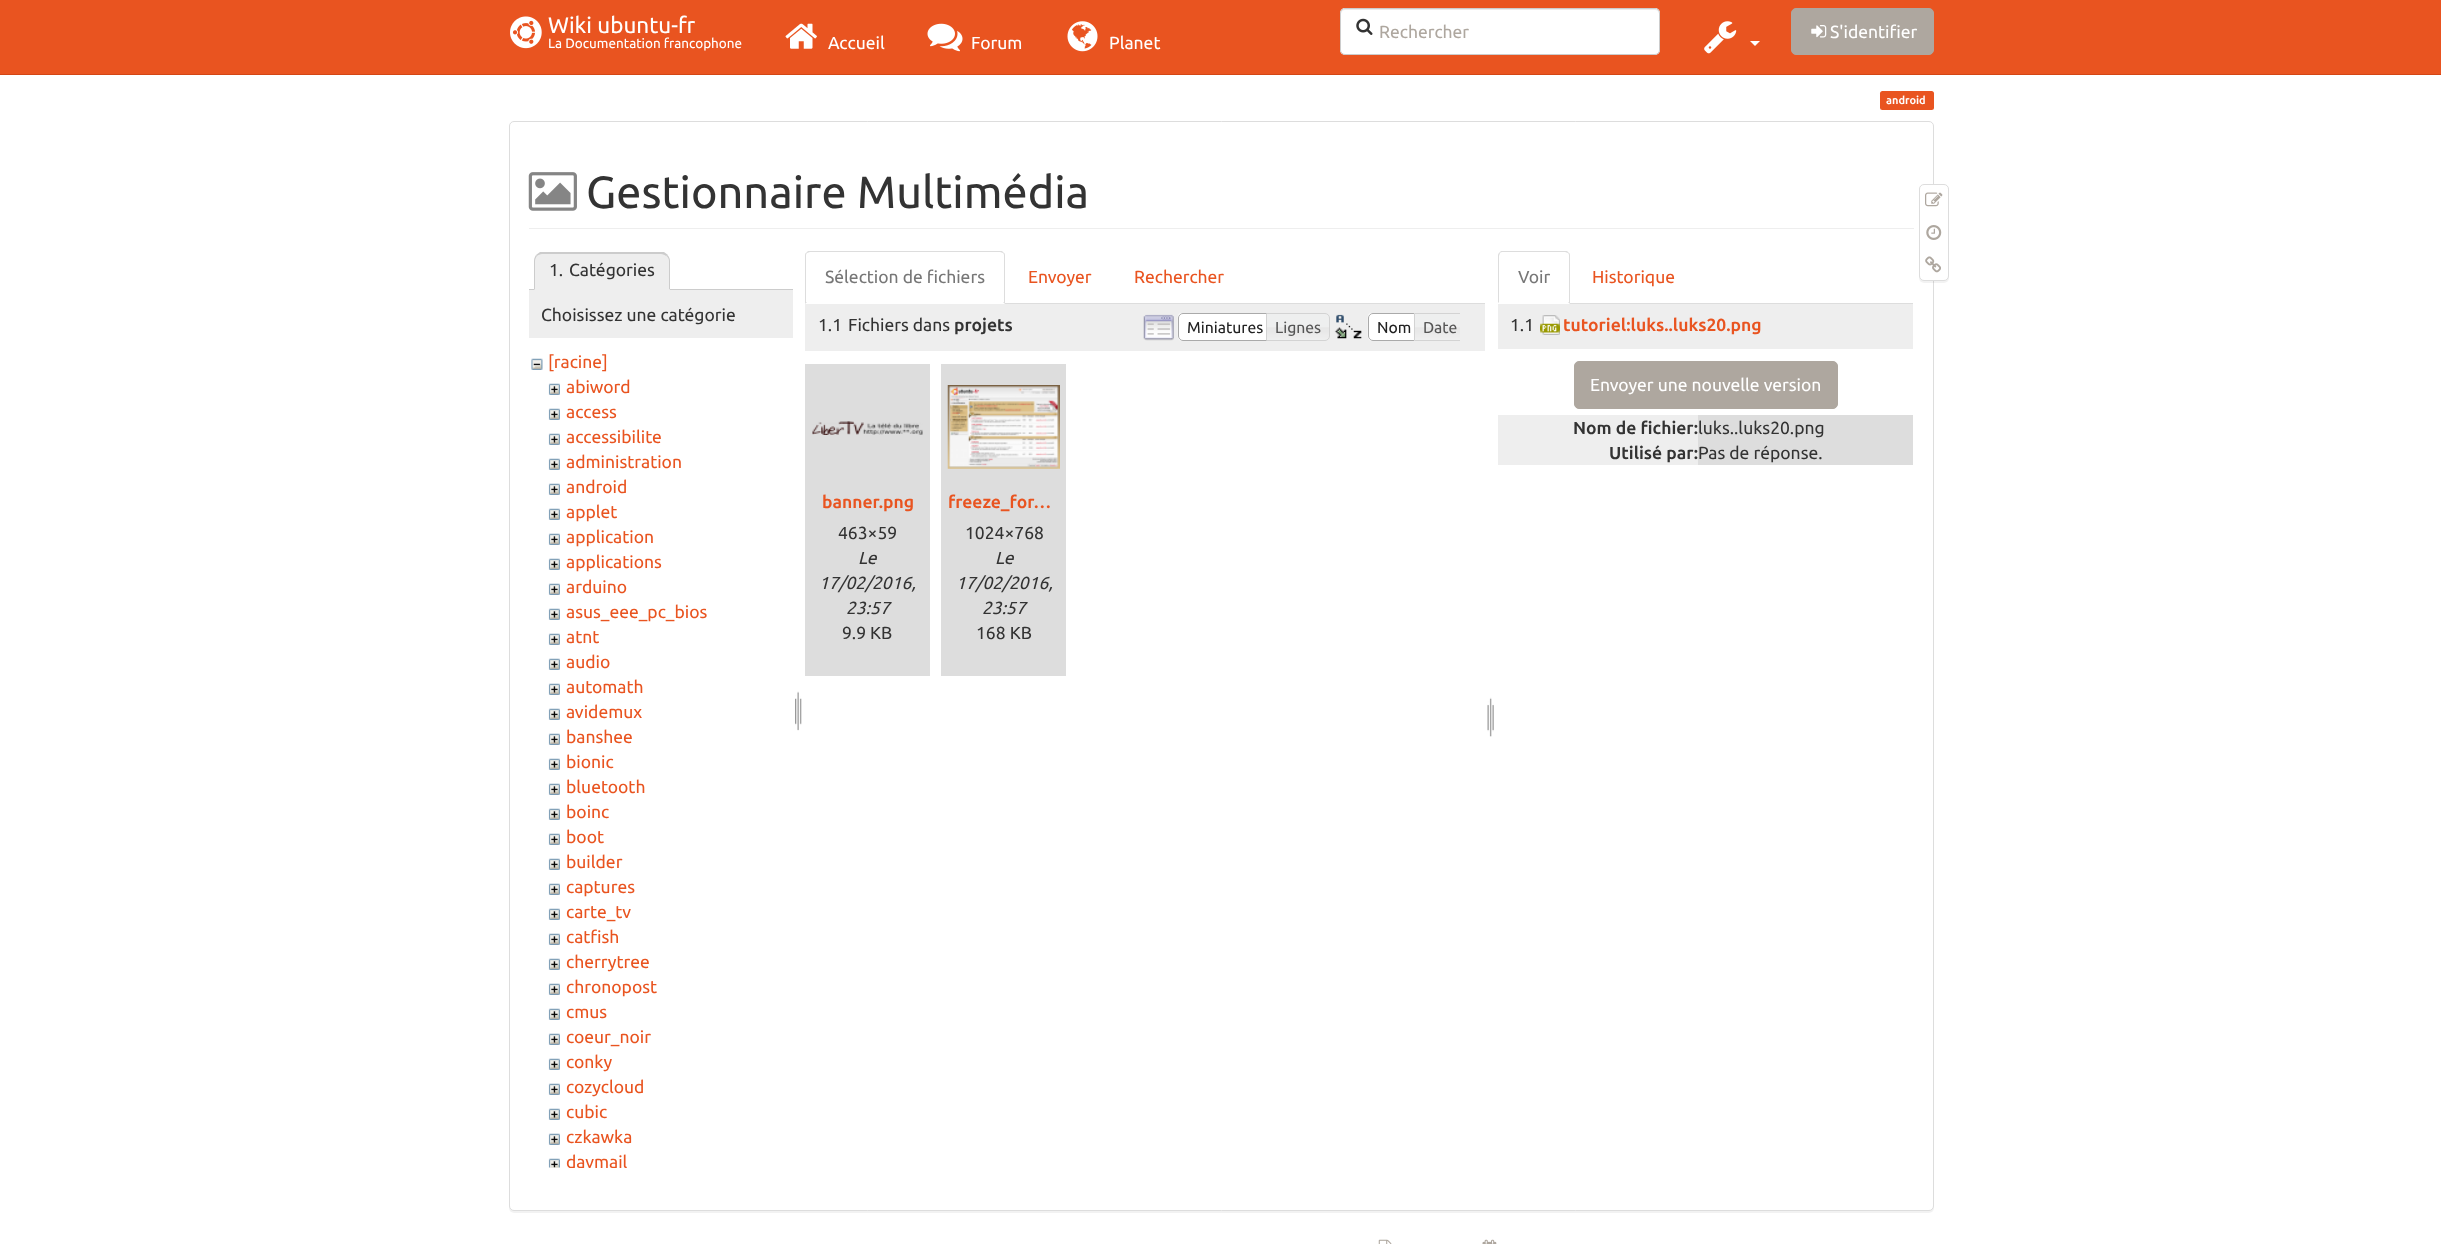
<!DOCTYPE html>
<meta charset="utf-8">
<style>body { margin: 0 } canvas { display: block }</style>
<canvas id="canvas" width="2441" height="1244"></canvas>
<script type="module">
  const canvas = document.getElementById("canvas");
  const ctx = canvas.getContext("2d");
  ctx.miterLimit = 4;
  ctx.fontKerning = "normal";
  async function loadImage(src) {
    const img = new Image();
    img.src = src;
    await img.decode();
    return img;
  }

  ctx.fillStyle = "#ffffff";
  ctx.fillRect(0, 0, 2441, 1244);
  ctx.fillStyle = "#e95420";
  ctx.fillRect(0, 0, 2441, 74);
  ctx.fillStyle = "#d34615";
  ctx.fillRect(0, 74, 2441, 1);
  ctx.drawImage(await loadImage("img1.png"), 510, 16, 32, 33);
  ctx.font = "22.5px Ubuntu";
  ctx.fillStyle = "#ffffff";
  ctx.fillText("Wiki ubuntu-fr", 548, 33);
  ctx.font = "13.5px Ubuntu";
  ctx.fillText("La Documentation francophone", 548, 48);
  ctx.beginPath();
  ctx.roundRect(1340, 8, 320, 47, 5);
  ctx.fill();
  ctx.fillStyle = "#ececec";
  ctx.beginPath();
  ctx.moveTo(1345, 10);
  ctx.lineTo(1655, 10);
  ctx.bezierCurveTo(1657, 10, 1659, 12, 1659, 14);
  ctx.lineTo(1659, 13);
  ctx.bezierCurveTo(1659, 11, 1657, 9, 1655, 9);
  ctx.lineTo(1345, 9);
  ctx.bezierCurveTo(1343, 9, 1341, 11, 1341, 13);
  ctx.lineTo(1341, 14);
  ctx.bezierCurveTo(1341, 12, 1343, 10, 1345, 10);
  ctx.closePath();
  ctx.fill();
  ctx.beginPath();
  ctx.roundRect(1340.5, 8.5, 319, 46, 4.5);
  ctx.strokeStyle = "#cccccc";
  ctx.stroke();
  ctx.drawImage(await loadImage("img2.png"), 1356, 18, 17, 17);
  ctx.font = "17.5px Ubuntu";
  ctx.fillStyle = "#aea79f";
  ctx.fillText("Rechercher", 1379, 38);
  ctx.drawImage(await loadImage("img3.png"), 1704, 21, 33, 33);
  ctx.fillStyle = "#ffffff";
  ctx.beginPath();
  ctx.moveTo(1750, 41);
  ctx.lineTo(1760, 41);
  ctx.lineTo(1755, 46);
  ctx.closePath();
  ctx.fill();
  ctx.fillStyle = "#aea79f";
  ctx.beginPath();
  ctx.roundRect(1791.5, 8.5, 142, 46, 4.5);
  ctx.fill();
  ctx.strokeStyle = "#aea79f";
  ctx.stroke();
  ctx.drawImage(await loadImage("img4.png"), 1811, 25, 16, 13);
  ctx.fillStyle = "#ffffff";
  ctx.fillText("S'identifier", 1830, 38);
  ctx.drawImage(await loadImage("img5.png"), 785, 23, 32, 26);
  ctx.fillText("Accueil", 828, 49);
  ctx.drawImage(await loadImage("img6.png"), 927, 23, 36, 29);
  ctx.fillText("Forum", 971, 49);
  ctx.drawImage(await loadImage("img7.png"), 1067, 21, 31, 31);
  ctx.fillText("Planet", 1109, 49);
  ctx.fillStyle = "#e95420";
  ctx.beginPath();
  ctx.roundRect(1880, 91, 54, 19, 2.5);
  ctx.fill();
  ctx.font = "bold 11px Ubuntu";
  ctx.fillStyle = "#ffffff";
  ctx.fillText("android", 1886, 104);
  ctx.fillStyle = "rgba(0, 0, 0, 0.05)";
  ctx.filter = "blur(0.5px)";
  ctx.beginPath();
  ctx.roundRect(509, 123, 1425, 1090, 5);
  ctx.fill();
  ctx.filter = "none";
  ctx.fillStyle = "#ffffff";
  ctx.beginPath();
  ctx.roundRect(509.5, 121.5, 1424, 1089, 4.5);
  ctx.fill();
  ctx.strokeStyle = "#dddddd";
  ctx.stroke();
  ctx.fillStyle = "#eeeeee";
  ctx.fillRect(529, 228, 1385, 1);
  ctx.drawImage(await loadImage("img8.png"), 528, 172, 49, 39);
  ctx.font = "45px Ubuntu";
  ctx.fillStyle = "#333333";
  ctx.fillText("Gestionnaire Multimédia", 586, 208);
  ctx.fillStyle = "#cccccc";
  ctx.fillRect(529, 289, 264, 1);
  ctx.fillStyle = "#eeeeee";
  ctx.beginPath();
  ctx.roundRect(534, 253, 136, 37, [9, 9, 0, 0]);
  ctx.fill();
  ctx.fillStyle = "#cccccc";
  ctx.beginPath();
  ctx.moveTo(542, 254);
  ctx.bezierCurveTo(540, 254, 538, 255, 537, 256);
  ctx.lineTo(536, 255);
  ctx.lineTo(540, 252);
  ctx.lineTo(664, 252);
  ctx.lineTo(668, 255);
  ctx.lineTo(666, 256);
  ctx.bezierCurveTo(665, 255, 663, 254, 661, 254);
  ctx.closePath();
  ctx.fill();
  ctx.beginPath();
  ctx.moveTo(670, 290);
  ctx.lineTo(670, 261);
  ctx.bezierCurveTo(670, 258.5, 669, 256.5, 667.5, 255);
  ctx.lineTo(666.5, 256);
  ctx.bezierCurveTo(668, 257, 669, 259, 669, 261);
  ctx.lineTo(669, 289);
  ctx.closePath();
  ctx.fill();
  ctx.fillStyle = "#eeeeee";
  ctx.beginPath();
  ctx.moveTo(670, 290);
  ctx.lineTo(669, 289);
  ctx.lineTo(535, 289);
  ctx.lineTo(534, 290);
  ctx.closePath();
  ctx.fill();
  ctx.fillStyle = "#cccccc";
  ctx.beginPath();
  ctx.moveTo(534, 290);
  ctx.lineTo(534, 261);
  ctx.bezierCurveTo(534, 258.5, 535, 256.5, 536, 255);
  ctx.lineTo(537, 256);
  ctx.bezierCurveTo(536, 257, 535, 259, 535, 261);
  ctx.lineTo(535, 289);
  ctx.closePath();
  ctx.fill();
  ctx.font = "17.5px Ubuntu";
  ctx.fillStyle = "#333333";
  ctx.fillText("1.", 549, 276);
  ctx.fillText("Catégories", 569, 276);
  ctx.fillStyle = "#eeeeee";
  ctx.fillRect(529, 290, 264, 48);
  ctx.fillStyle = "#333333";
  ctx.fillText("Choisissez une catégorie", 541, 321);
  ctx.drawImage(await loadImage("img9.png"), 531, 358, 12, 12);
  ctx.fillStyle = "#e95420";
  ctx.fillText("[racine]", 548, 368);
  ctx.drawImage(await loadImage("img10.png"), 548, 383, 12, 12);
  ctx.fillText("abiword", 566, 393);
  ctx.drawImage(await loadImage("img10.png"), 548, 408, 12, 12);
  ctx.fillText("access", 566, 418);
  ctx.drawImage(await loadImage("img10.png"), 548, 433, 12, 12);
  ctx.fillText("accessibilite", 566, 443);
  ctx.drawImage(await loadImage("img10.png"), 548, 458, 12, 12);
  ctx.fillText("administration", 566, 468);
  ctx.drawImage(await loadImage("img10.png"), 548, 483, 12, 12);
  ctx.fillText("android", 566, 493);
  ctx.drawImage(await loadImage("img10.png"), 548, 508, 12, 12);
  ctx.fillText("applet", 566, 518);
  ctx.drawImage(await loadImage("img10.png"), 548, 533, 12, 12);
  ctx.fillText("application", 566, 543);
  ctx.drawImage(await loadImage("img10.png"), 548, 558, 12, 12);
  ctx.fillText("applications", 566, 568);
  ctx.drawImage(await loadImage("img11.png"), 548, 583, 12, 12);
  ctx.fillText("arduino", 566, 593);
  ctx.drawImage(await loadImage("img10.png"), 548, 608, 12, 12);
  ctx.fillText("asus_eee_pc_bios", 566, 618);
  ctx.drawImage(await loadImage("img10.png"), 548, 633, 12, 12);
  ctx.fillText("atnt", 566, 643);
  ctx.drawImage(await loadImage("img10.png"), 548, 658, 12, 12);
  ctx.fillText("audio", 566, 668);
  ctx.drawImage(await loadImage("img10.png"), 548, 683, 12, 12);
  ctx.fillText("automath", 566, 693);
  ctx.drawImage(await loadImage("img10.png"), 548, 708, 12, 12);
  ctx.fillText("avidemux", 566, 718);
  ctx.drawImage(await loadImage("img10.png"), 548, 733, 12, 12);
  ctx.fillText("banshee", 566, 743);
  ctx.drawImage(await loadImage("img10.png"), 548, 758, 12, 12);
  ctx.fillText("bionic", 566, 768);
  ctx.drawImage(await loadImage("img10.png"), 548, 783, 12, 12);
  ctx.fillText("bluetooth", 566, 793);
  ctx.drawImage(await loadImage("img10.png"), 548, 808, 12, 12);
  ctx.fillText("boinc", 566, 818);
  ctx.drawImage(await loadImage("img10.png"), 548, 833, 12, 12);
  ctx.fillText("boot", 566, 843);
  ctx.drawImage(await loadImage("img10.png"), 548, 858, 12, 12);
  ctx.fillText("builder", 566, 868);
  ctx.drawImage(await loadImage("img10.png"), 548, 883, 12, 12);
  ctx.fillText("captures", 566, 893);
  ctx.drawImage(await loadImage("img10.png"), 548, 908, 12, 12);
  ctx.fillText("carte_tv", 566, 918);
  ctx.drawImage(await loadImage("img10.png"), 548, 933, 12, 12);
  ctx.fillText("catfish", 566, 943);
  ctx.drawImage(await loadImage("img10.png"), 548, 958, 12, 12);
  ctx.fillText("cherrytree", 566, 968);
  ctx.drawImage(await loadImage("img10.png"), 548, 983, 12, 12);
  ctx.fillText("chronopost", 566, 993);
  ctx.drawImage(await loadImage("img10.png"), 548, 1008, 12, 12);
  ctx.fillText("cmus", 566, 1018);
  ctx.drawImage(await loadImage("img10.png"), 548, 1033, 12, 12);
  ctx.fillText("coeur_noir", 566, 1043);
  ctx.drawImage(await loadImage("img10.png"), 548, 1058, 12, 12);
  ctx.fillText("conky", 566, 1068);
  ctx.drawImage(await loadImage("img10.png"), 548, 1083, 12, 12);
  ctx.fillText("cozycloud", 566, 1093);
  ctx.drawImage(await loadImage("img10.png"), 548, 1108, 12, 12);
  ctx.fillText("cubic", 566, 1118);
  ctx.drawImage(await loadImage("img10.png"), 548, 1133, 12, 12);
  ctx.fillText("czkawka", 566, 1143);
  ctx.drawImage(await loadImage("img12.png"), 548, 1158, 12, 10);
  ctx.save();
  ctx.beginPath();
  ctx.rect(549, 1150, 244, 18);
  ctx.clip();
  ctx.fillText("davmail", 566, 1168);
  ctx.restore();
  ctx.drawImage(await loadImage("img13.png"), 795, 691, 7, 40);
  ctx.fillStyle = "#dddddd";
  ctx.fillRect(1005, 303, 480, 1);
  ctx.beginPath();
  ctx.moveTo(810, 252);
  ctx.lineTo(807, 253);
  ctx.lineTo(806, 253);
  ctx.lineTo(808, 251);
  ctx.lineTo(1002, 251);
  ctx.lineTo(1004, 253);
  ctx.lineTo(1003, 253);
  ctx.lineTo(1000, 252);
  ctx.closePath();
  ctx.fill();
  ctx.beginPath();
  ctx.moveTo(1005, 304);
  ctx.lineTo(1005, 256);
  ctx.bezierCurveTo(1005, 255, 1005, 253, 1004, 253);
  ctx.lineTo(1003, 253);
  ctx.bezierCurveTo(1004, 254, 1004, 255, 1004, 256);
  ctx.lineTo(1004, 302);
  ctx.lineTo(1003, 302);
  ctx.closePath();
  ctx.fill();
  ctx.beginPath();
  ctx.moveTo(805, 304);
  ctx.lineTo(807, 302);
  ctx.lineTo(806, 302);
  ctx.lineTo(806, 256);
  ctx.bezierCurveTo(806, 255, 806, 254, 807, 253);
  ctx.lineTo(806, 253);
  ctx.bezierCurveTo(805, 253, 805, 255, 805, 256);
  ctx.closePath();
  ctx.fill();
  ctx.fillStyle = "#777777";
  ctx.fillText("Sélection de fichiers", 825, 283);
  ctx.fillStyle = "#e95420";
  ctx.fillText("Envoyer", 1028, 283);
  ctx.fillText("Rechercher", 1134, 283);
  ctx.fillStyle = "#eeeeee";
  ctx.fillRect(805, 304, 680, 47);
  ctx.fillStyle = "#333333";
  ctx.fillText("1.1", 818, 331);
  ctx.fillText("Fichiers dans", 848, 331);
  ctx.font = "bold 17.5px Ubuntu";
  ctx.fillText("projets", 954, 331);
  ctx.drawImage(await loadImage("img14.png"), 1143, 314, 31, 27);
  ctx.fillStyle = "#ffffff";
  ctx.beginPath();
  ctx.roundRect(1178, 313, 95, 28, [5, 0, 0, 5]);
  ctx.fill();
  ctx.drawImage(await loadImage("img15.png"), 1177, 313, 5, 28);
  ctx.beginPath();
  ctx.roundRect(1178.5, 313.5, 94, 27, [4.5, 0, 0, 4.5]);
  ctx.strokeStyle = "#aaaaaa";
  ctx.stroke();
  ctx.font = "15.75px Ubuntu";
  ctx.fillStyle = "#212121";
  ctx.fillText("Miniatures", 1187, 333);
  ctx.drawImage(await loadImage("img16.png"), 1267, 313, 63, 28);
  ctx.beginPath();
  ctx.roundRect(1266.5, 313.5, 63, 27, [0, 4.5, 4.5, 0]);
  ctx.strokeStyle = "#d3d3d3";
  ctx.stroke();
  ctx.fillStyle = "#555555";
  ctx.fillText("Lignes", 1275, 333);
  ctx.drawImage(await loadImage("img17.png"), 1334, 314, 28, 25);
  ctx.fillStyle = "#ffffff";
  ctx.beginPath();
  ctx.roundRect(1368, 313, 52, 28, [5, 0, 0, 5]);
  ctx.fill();
  ctx.drawImage(await loadImage("img15.png"), 1367, 313, 5, 28);
  ctx.beginPath();
  ctx.roundRect(1368.5, 313.5, 51, 27, [4.5, 0, 0, 4.5]);
  ctx.strokeStyle = "#aaaaaa";
  ctx.stroke();
  ctx.fillStyle = "#212121";
  ctx.fillText("Nom", 1377, 333);
  ctx.drawImage(await loadImage("img18.png"), 1413, 313, 47, 28);
  ctx.save();
  ctx.beginPath();
  ctx.rect(1134, 313, 326, 28);
  ctx.clip();
  ctx.beginPath();
  ctx.roundRect(1414.5, 313.5, 51, 27, [0, 4.5, 4.5, 0]);
  ctx.strokeStyle = "#d3d3d3";
  ctx.stroke();
  ctx.restore();
  ctx.fillStyle = "#555555";
  ctx.fillText("Date", 1423, 333);
  ctx.fillStyle = "#dddddd";
  ctx.fillRect(805, 364, 125, 312);
  ctx.drawImage(await loadImage("img19.png"), 812, 421, 111, 14);
  ctx.font = "bold 17.5px Ubuntu";
  ctx.fillStyle = "#e95420";
  ctx.fillText("banner.png", 822, 508);
  ctx.font = "17.5px Ubuntu";
  ctx.fillStyle = "#333333";
  ctx.fillText("463×59", 838, 539);
  ctx.font = "italic 17.5px Ubuntu";
  ctx.fillText("Le", 858, 564);
  ctx.fillText("17/02/2016,", 819, 589);
  ctx.fillText("23:57", 846, 614);
  ctx.font = "17.5px Ubuntu";
  ctx.fillText("9.9 KB", 842, 639);
  ctx.fillStyle = "#dddddd";
  ctx.fillRect(941, 364, 125, 312);
  ctx.drawImage(await loadImage("img20.png"), 947, 385, 113, 84);
  ctx.font = "bold 17.5px Ubuntu";
  ctx.fillStyle = "#e95420";
  ctx.fillText("freeze_for…", 948, 508);
  ctx.font = "17.5px Ubuntu";
  ctx.fillStyle = "#333333";
  ctx.fillText("1024×768", 965, 539);
  ctx.font = "italic 17.5px Ubuntu";
  ctx.fillText("Le", 995, 564);
  ctx.fillText("17/02/2016,", 956, 589);
  ctx.fillText("23:57", 982, 614);
  ctx.font = "17.5px Ubuntu";
  ctx.fillText("168 KB", 976, 639);
  ctx.drawImage(await loadImage("img21.png"), 1487, 697, 7, 40);
  ctx.fillStyle = "#dddddd";
  ctx.fillRect(1570, 303, 343, 1);
  ctx.beginPath();
  ctx.moveTo(1502, 252);
  ctx.bezierCurveTo(1501, 252, 1500, 253, 1500, 253);
  ctx.lineTo(1499, 253);
  ctx.lineTo(1501, 251);
  ctx.lineTo(1567, 251);
  ctx.lineTo(1569, 253);
  ctx.lineTo(1568, 253);
  ctx.lineTo(1565, 252);
  ctx.closePath();
  ctx.fill();
  ctx.beginPath();
  ctx.moveTo(1570, 304);
  ctx.lineTo(1570, 256);
  ctx.bezierCurveTo(1570, 255, 1570, 253, 1569, 253);
  ctx.lineTo(1568, 253);
  ctx.bezierCurveTo(1569, 254, 1569, 255, 1569, 256);
  ctx.lineTo(1569, 302);
  ctx.lineTo(1568, 302);
  ctx.closePath();
  ctx.fill();
  ctx.beginPath();
  ctx.moveTo(1498, 303);
  ctx.lineTo(1498, 256);
  ctx.bezierCurveTo(1498, 255, 1498, 254, 1499, 253);
  ctx.lineTo(1500, 253);
  ctx.lineTo(1499, 256);
  ctx.lineTo(1499, 302);
  ctx.closePath();
  ctx.fill();
  ctx.fillStyle = "#777777";
  ctx.fillText("Voir", 1518, 283);
  ctx.fillStyle = "#e95420";
  ctx.fillText("Historique", 1592, 283);
  ctx.fillStyle = "#eeeeee";
  ctx.fillRect(1498, 304, 415, 45);
  ctx.fillStyle = "#333333";
  ctx.fillText("1.1", 1510, 331);
  ctx.drawImage(await loadImage("img22.png"), 1540, 315, 20, 20);
  ctx.font = "bold 17.5px Ubuntu";
  ctx.fillStyle = "#e95420";
  ctx.fillText("tutoriel:luks..luks20.png", 1563, 331);
  ctx.fillStyle = "#aea79f";
  ctx.beginPath();
  ctx.roundRect(1574.5, 361.5, 263, 47, 4.5);
  ctx.fill();
  ctx.strokeStyle = "#aea79f";
  ctx.stroke();
  ctx.font = "17.5px Ubuntu";
  ctx.fillStyle = "#ffffff";
  ctx.fillText("Envoyer une nouvelle version", 1590, 391);
  ctx.fillStyle = "#eeeeee";
  ctx.fillRect(1498, 415, 200, 50);
  ctx.font = "bold 17.5px Ubuntu";
  ctx.fillStyle = "#333333";
  ctx.fillText("Nom de fichier:", 1573, 434);
  ctx.fillStyle = "#dddddd";
  ctx.fillRect(1698, 415, 215, 50);
  ctx.font = "17.5px Ubuntu";
  ctx.fillStyle = "#333333";
  ctx.fillText("luks..luks20.png", 1698, 434);
  ctx.font = "bold 17.5px Ubuntu";
  ctx.fillText("Utilisé par:", 1609, 459);
  ctx.font = "17.5px Ubuntu";
  ctx.fillText("Pas de réponse.", 1698, 459);
  ctx.fillStyle = "rgba(0, 0, 0, 0.05)";
  ctx.filter = "blur(0.5px)";
  ctx.beginPath();
  ctx.roundRect(1919, 185, 30, 98, 5);
  ctx.fill();
  ctx.filter = "none";
  ctx.fillStyle = "#ffffff";
  ctx.beginPath();
  ctx.roundRect(1919.5, 184.5, 29, 96, 4.5);
  ctx.fill();
  ctx.strokeStyle = "#dddddd";
  ctx.stroke();
  ctx.drawImage(await loadImage("img23.png"), 1925, 192, 18, 15);
  ctx.drawImage(await loadImage("img24.png"), 1926, 225, 16, 15);
  ctx.drawImage(await loadImage("img25.png"), 1925, 256, 16, 17);
  ctx.drawImage(await loadImage("img26.png"), 1378, 1239, 14, 5);
  ctx.drawImage(await loadImage("img27.png"), 1482, 1239, 15, 5);
</script>
